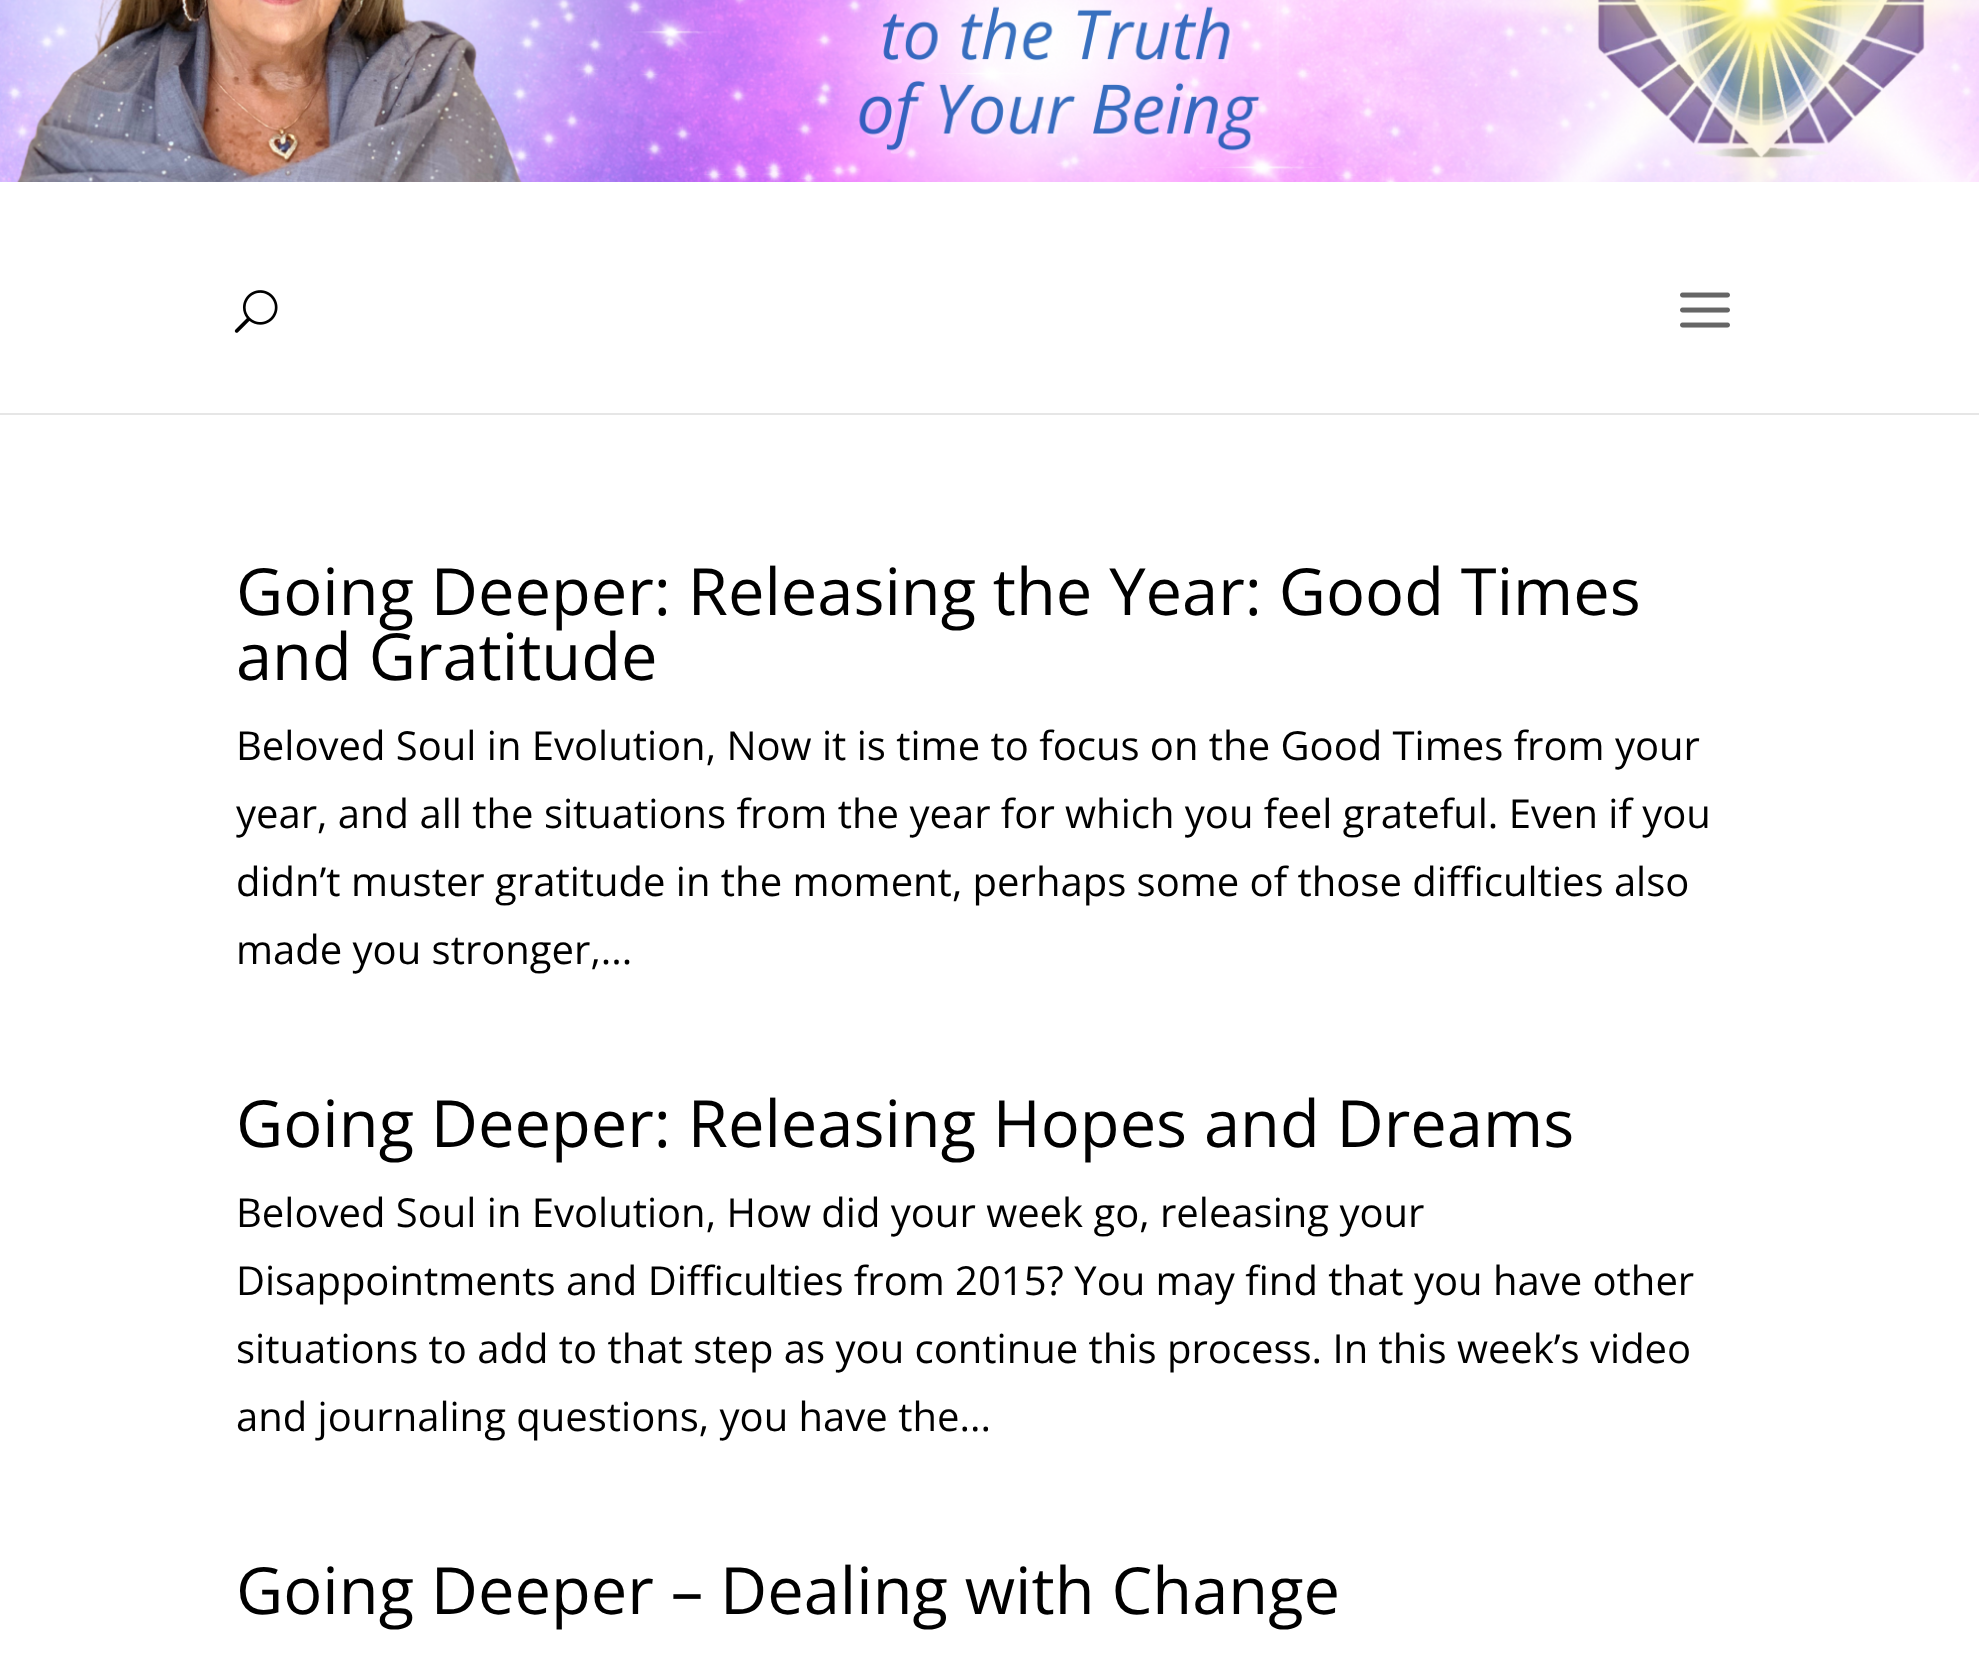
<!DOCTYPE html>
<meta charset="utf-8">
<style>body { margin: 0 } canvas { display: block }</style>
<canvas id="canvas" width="1979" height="1672"></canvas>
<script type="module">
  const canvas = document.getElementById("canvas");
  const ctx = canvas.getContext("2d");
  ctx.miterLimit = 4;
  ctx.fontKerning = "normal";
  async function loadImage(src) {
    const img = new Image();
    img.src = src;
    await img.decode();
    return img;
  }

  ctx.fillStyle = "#ffffff";
  ctx.fillRect(0, 0, 1979, 1672);
  ctx.fillStyle = "#e6e6e6";
  ctx.fillRect(0, 413, 1979, 2);
  ctx.drawImage(await loadImage("img1.png"), 0, 0, 1979, 182);
  ctx.drawImage(await loadImage("img2.png"), 234, 290, 44, 43);
  ctx.drawImage(await loadImage("img3.png"), 1680, 292, 50, 36);
  ctx.font = "65px Open Sans";
  ctx.fillStyle = "#000000";
  ctx.fillText("Going Deeper: Releasing the Year: Good Times", 236, 615);
  ctx.fillText("and Gratitude", 236, 680);
  ctx.font = "40px Open Sans";
  ctx.fillText("Beloved Soul in Evolution, Now it is time to focus on the Good Times from your", 236, 760);
  ctx.fillText("year, and all the situations from the year for which you feel grateful. Even if you", 236, 828);
  ctx.fillText("didn’t muster gratitude in the moment, perhaps some of those difficulties also", 236, 896);
  ctx.fillText("made you stronger,...", 236, 964);
  ctx.font = "65px Open Sans";
  ctx.fillText("Going Deeper: Releasing Hopes and Dreams", 236, 1147);
  ctx.font = "40px Open Sans";
  ctx.fillText("Beloved Soul in Evolution, How did your week go, releasing your", 236, 1227);
  ctx.fillText("Disappointments and Difficulties from 2015? You may find that you have other", 236, 1295);
  ctx.fillText("situations to add to that step as you continue this process. In this week’s video", 236, 1363);
  ctx.fillText("and journaling questions, you have the...", 236, 1431);
  ctx.font = "65px Open Sans";
  ctx.fillText("Going Deeper – Dealing with Change", 236, 1614);
</script>
